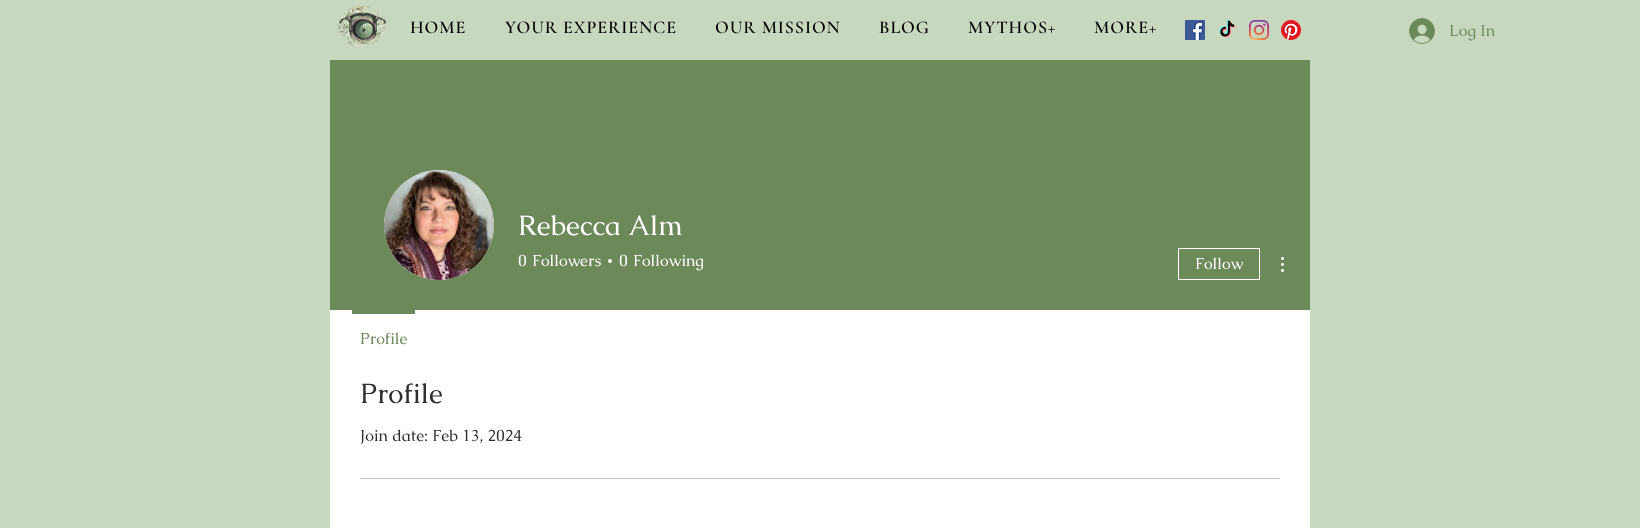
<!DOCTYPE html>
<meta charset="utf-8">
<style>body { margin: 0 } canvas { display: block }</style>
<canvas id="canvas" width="1640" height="528"></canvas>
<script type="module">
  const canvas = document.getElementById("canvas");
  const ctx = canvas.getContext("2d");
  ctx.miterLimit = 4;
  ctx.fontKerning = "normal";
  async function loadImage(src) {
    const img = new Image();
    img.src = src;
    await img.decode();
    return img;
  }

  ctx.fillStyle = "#c8d8be";
  ctx.fillRect(0, 0, 1640, 528);
  ctx.drawImage(await loadImage("img1.png"), 335, 5, 52, 44);
  ctx.letterSpacing = "0.9px";
  ctx.font = "600 18px Cormorant Garamond";
  ctx.fillStyle = "#000000";
  ctx.fillText("HOME", 410, 33);
  ctx.fillText("YOUR EXPERIENCE", 505, 33);
  ctx.fillText("OUR MISSION", 715, 33);
  ctx.fillText("BLOG", 879, 33);
  ctx.fillText("MYTHOS+", 968, 33);
  ctx.fillText("MORE+", 1094, 33);
  ctx.drawImage(await loadImage("img2.png"), 1185, 20, 20, 20);
  ctx.drawImage(await loadImage("img3.png"), 1219, 20, 16, 18);
  ctx.drawImage(await loadImage("img4.png"), 1249, 20, 20, 20);
  ctx.drawImage(await loadImage("img5.png"), 1281, 20, 20, 20);
  ctx.drawImage(await loadImage("img6.png"), 1409, 18, 26, 26);
  ctx.letterSpacing = "0px";
  ctx.font = "16px Caudex";
  ctx.fillStyle = "#6c8959";
  ctx.fillText("Log In", 1449, 36);
  ctx.fillRect(330, 60, 980, 250);
  ctx.fillStyle = "#d8d8d8";
  ctx.beginPath();
  ctx.arc(439, 225, 55, 0, Math.PI * 2);
  ctx.fill();
  ctx.drawImage(await loadImage("img7.png"), 384, 170, 110, 110);
  ctx.font = "28px Caudex";
  ctx.fillStyle = "#ffffff";
  ctx.fillText("Rebecca Alm", 518, 235);
  ctx.font = "16px Caudex";
  ctx.fillText("0", 518, 266);
  ctx.fillText("Followers", 532, 266);
  ctx.beginPath();
  ctx.arc(610, 261, 2, 0, Math.PI * 2);
  ctx.fill();
  ctx.fillText("0", 619, 266);
  ctx.fillText("Following", 633, 266);
  ctx.strokeStyle = "#ffffff";
  ctx.strokeRect(1178.5, 248.5, 81, 31);
  ctx.fillText("Follow", 1195, 269);
  ctx.drawImage(await loadImage("img8.png"), 1281, 257, 3, 15);
  ctx.fillRect(330, 310, 980, 218);
  ctx.fillStyle = "#6c8959";
  ctx.fillRect(352, 310, 63, 4);
  ctx.fillText("Profile", 360, 344);
  ctx.font = "28px Caudex";
  ctx.fillStyle = "#2e2e2e";
  ctx.fillText("Profile", 360, 403);
  ctx.font = "16px Caudex";
  ctx.fillText("Join date: Feb 13, 2024", 360, 441);
  ctx.fillStyle = "#c0c0c0";
  ctx.fillRect(360, 478, 920, 1);
</script>
